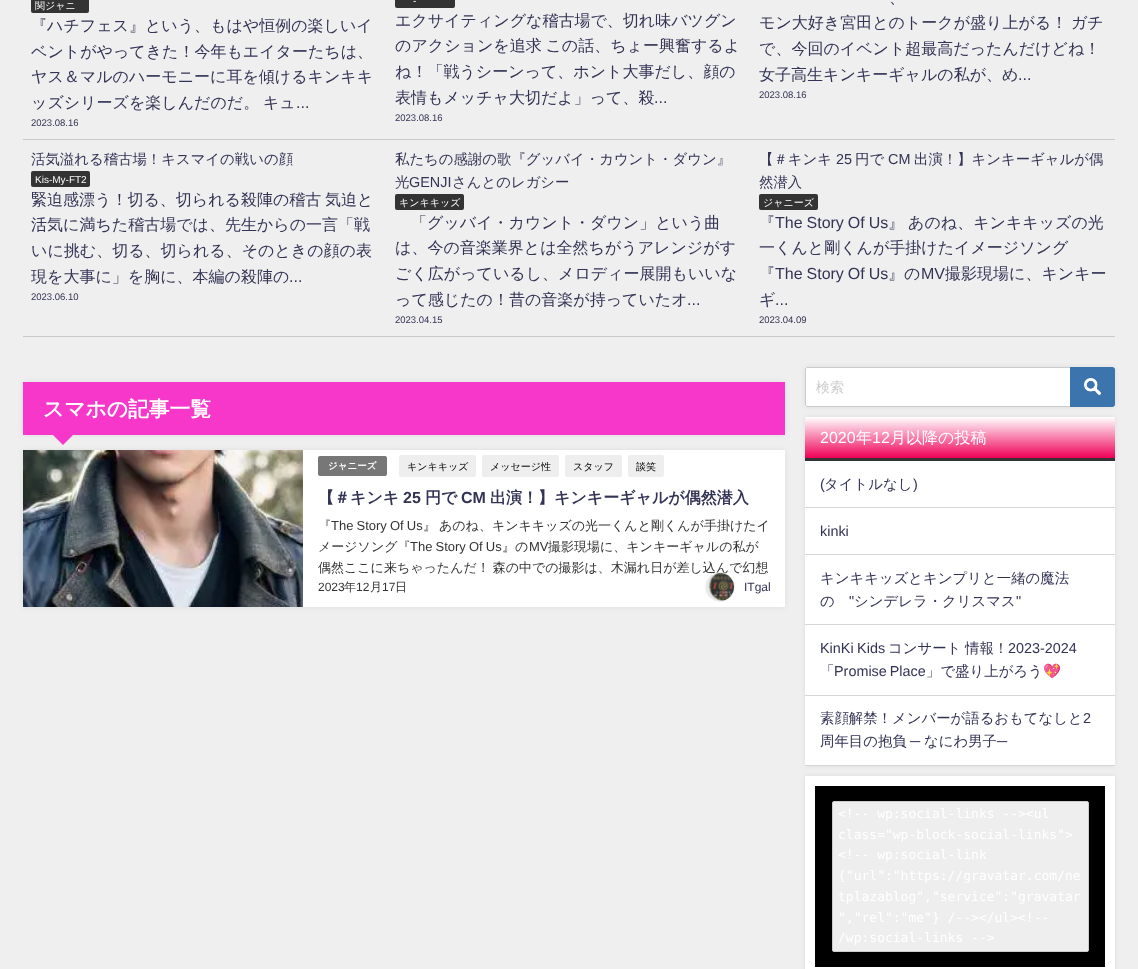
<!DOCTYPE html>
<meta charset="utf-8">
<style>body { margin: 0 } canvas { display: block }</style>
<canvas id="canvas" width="1138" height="969"></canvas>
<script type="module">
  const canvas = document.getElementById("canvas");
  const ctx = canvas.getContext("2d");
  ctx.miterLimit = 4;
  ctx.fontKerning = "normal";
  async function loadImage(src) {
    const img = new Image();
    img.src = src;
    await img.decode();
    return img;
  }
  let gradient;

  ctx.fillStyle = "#efefef";
  ctx.fillRect(0, 0, 1138, 969);
  ctx.fillStyle = "#c9c9c9";
  ctx.fillRect(23, 139, 1092, 1);
  ctx.fillStyle = "#333333";
  ctx.beginPath();
  ctx.roundRect(31, -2, 58, 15, 2);
  ctx.fill();
  ctx.font = "500 10px WenQuanYi Zen Hei";
  ctx.fillStyle = "#ffffff";
  ctx.fillText("関ジャニ", 35, 9);
  ctx.font = "500 16px WenQuanYi Zen Hei";
  ctx.fillStyle = "#333355";
  ctx.fillText("『ハチフェス』という、もはや恒例の楽しいイ", 31, 31);
  ctx.fillText("ベントがやってきた！今年もエイターたちは、", 31, 57);
  ctx.fillText("ヤス＆マルのハーモニーに耳を傾けるキンキキ", 31, 82);
  ctx.wordSpacing = "-1px";
  ctx.fillText("ッズシリーズを楽しんだのだ。 キュ", 31, 108);
  ctx.wordSpacing = "0px";
  ctx.font = "16px Liberation Sans";
  ctx.fillText("...", 296, 108);
  ctx.font = "9.5px Liberation Sans";
  ctx.fillText("2023.08.16", 31, 126);
  ctx.fillStyle = "#333333";
  ctx.beginPath();
  ctx.roundRect(395, -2, 60, 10, 2);
  ctx.fill();
  ctx.font = "10px Liberation Sans";
  ctx.fillStyle = "#ffffff";
  ctx.fillText("-", 413, 4);
  ctx.font = "500 16px WenQuanYi Zen Hei";
  ctx.fillStyle = "#333355";
  ctx.fillText("エクサイティングな稽古場で、切れ味バツグン", 395, 26);
  ctx.wordSpacing = "-1px";
  ctx.fillText("のアクションを追求 この話、ちょー興奮するよ", 395, 51);
  ctx.wordSpacing = "0px";
  ctx.fillText("ね！「戦うシーンって、ホント大事だし、顔の", 395, 77);
  ctx.fillText("表情もメッチャ大切だよ」って、殺", 395, 103);
  ctx.font = "16px Liberation Sans";
  ctx.fillText("...", 654, 103);
  ctx.font = "9.5px Liberation Sans";
  ctx.fillText("2023.08.16", 395, 121);
  ctx.font = "500 16px WenQuanYi Zen Hei";
  ctx.fillText("、", 889, 3);
  ctx.wordSpacing = "-1px";
  ctx.fillText("モン大好き宮田とのトークが盛り上がる！ ガチ", 759, 28);
  ctx.wordSpacing = "0px";
  ctx.fillText("で、今回のイベント超最高だったんだけどね！", 759, 54);
  ctx.fillText("女子高生キンキーギャルの私が、め", 759, 80);
  ctx.font = "16px Liberation Sans";
  ctx.fillText("...", 1018, 80);
  ctx.font = "9.5px Liberation Sans";
  ctx.fillText("2023.08.16", 759, 98);
  ctx.fillStyle = "#c9c9c9";
  ctx.fillRect(23, 336, 1092, 1);
  ctx.font = "500 14.4px WenQuanYi Zen Hei";
  ctx.fillStyle = "#333355";
  ctx.fillText("活気溢れる稽古場！キスマイの戦いの顔", 31, 164);
  ctx.fillStyle = "#333333";
  ctx.beginPath();
  ctx.roundRect(31, 171, 59, 16, 2);
  ctx.fill();
  ctx.font = "10px Liberation Sans";
  ctx.fillStyle = "#ffffff";
  ctx.fillText("Kis-My-FT2", 35, 183);
  ctx.wordSpacing = "-1px";
  ctx.font = "500 16px WenQuanYi Zen Hei";
  ctx.fillStyle = "#333355";
  ctx.fillText("緊迫感漂う！切る、切られる殺陣の稽古 気迫と", 31, 205);
  ctx.wordSpacing = "0px";
  ctx.fillText("活気に満ちた稽古場では、先生からの一言「戦", 31, 230);
  ctx.fillText("いに挑む、切る、切られる、そのときの顔の表", 31, 256);
  ctx.fillText("現を大事に」を胸に、本編の殺陣の", 31, 282);
  ctx.font = "16px Liberation Sans";
  ctx.fillText("...", 289, 282);
  ctx.font = "9.5px Liberation Sans";
  ctx.fillText("2023.06.10", 31, 300);
  ctx.font = "500 14.4px WenQuanYi Zen Hei";
  ctx.fillText("私たちの感謝の歌『グッバイ・カウント・ダウン』", 395, 164);
  ctx.fillText("光", 395, 187);
  ctx.font = "14.4px Liberation Sans";
  ctx.fillText("GENJI", 409, 187);
  ctx.font = "500 14.4px WenQuanYi Zen Hei";
  ctx.fillText("さんとのレガシー", 452, 187);
  ctx.fillStyle = "#333333";
  ctx.beginPath();
  ctx.roundRect(395, 194, 69, 16, 2);
  ctx.fill();
  ctx.font = "500 10px WenQuanYi Zen Hei";
  ctx.fillStyle = "#ffffff";
  ctx.fillText("キンキキッズ", 399, 206);
  ctx.font = "500 16px WenQuanYi Zen Hei";
  ctx.fillStyle = "#333355";
  ctx.fillText("「グッバイ・カウント・ダウン」という曲", 411, 228);
  ctx.fillText("は、今の音楽業界とは全然ちがうアレンジがす", 395, 253);
  ctx.fillText("ごく広がっているし、メロディー展開もいいな", 395, 279);
  ctx.fillText("って感じたの！昔の音楽が持っていたオ", 395, 305);
  ctx.font = "16px Liberation Sans";
  ctx.fillText("...", 687, 305);
  ctx.font = "9.5px Liberation Sans";
  ctx.fillText("2023.04.15", 395, 323);
  ctx.font = "500 14.4px WenQuanYi Zen Hei";
  ctx.fillText("【＃キンキ", 759, 164);
  ctx.font = "14.4px Liberation Sans";
  ctx.fillText("25", 836, 164);
  ctx.font = "500 14.4px WenQuanYi Zen Hei";
  ctx.fillText("円で", 855, 164);
  ctx.font = "14.4px Liberation Sans";
  ctx.fillText("CM", 888, 164);
  ctx.font = "500 14.4px WenQuanYi Zen Hei";
  ctx.fillText("出演！】キンキーギャルが偶", 914, 164);
  ctx.fillText("然潜入", 759, 187);
  ctx.fillStyle = "#333333";
  ctx.beginPath();
  ctx.roundRect(759, 194, 59, 16, 2);
  ctx.fill();
  ctx.font = "500 10px WenQuanYi Zen Hei";
  ctx.fillStyle = "#ffffff";
  ctx.fillText("ジャニーズ", 763, 206);
  ctx.font = "500 16px WenQuanYi Zen Hei";
  ctx.fillStyle = "#333355";
  ctx.fillText("『", 759, 228);
  ctx.wordSpacing = "-0.5px";
  ctx.font = "16px Liberation Sans";
  ctx.fillText("The Story Of Us", 775, 228);
  ctx.wordSpacing = "0px";
  ctx.font = "500 16px WenQuanYi Zen Hei";
  ctx.fillText("』", 888, 228);
  ctx.fillText("あのね、キンキキッズの光", 908, 228);
  ctx.fillText("一くんと剛くんが手掛けたイメージソング", 759, 253);
  ctx.fillText("『", 759, 279);
  ctx.wordSpacing = "-0.5px";
  ctx.font = "16px Liberation Sans";
  ctx.fillText("The Story Of Us", 775, 279);
  ctx.wordSpacing = "0px";
  ctx.font = "500 16px WenQuanYi Zen Hei";
  ctx.fillText("』の", 888, 279);
  ctx.font = "16px Liberation Sans";
  ctx.fillText("MV", 921, 279);
  ctx.font = "500 16px WenQuanYi Zen Hei";
  ctx.fillText("撮影現場に、キンキー", 945, 279);
  ctx.fillText("ギ", 759, 305);
  ctx.font = "16px Liberation Sans";
  ctx.fillText("...", 775, 305);
  ctx.font = "9.5px Liberation Sans";
  ctx.fillText("2023.04.09", 759, 323);
  ctx.fillStyle = "rgba(150, 150, 150, 0.2)";
  ctx.filter = "blur(2.5px)";
  ctx.beginPath();
  ctx.rect(23, 382, 762, 53);
  ctx.fill();
  ctx.filter = "none";
  ctx.fillStyle = "#f736ca";
  ctx.fillRect(23, 382, 762, 53);
  ctx.font = "bold 20.75px WenQuanYi Zen Hei";
  ctx.fillStyle = "#ffffff";
  ctx.fillText("スマホの記事一覧", 43, 416);
  ctx.fillStyle = "#f736ca";
  ctx.beginPath();
  ctx.moveTo(53, 435);
  ctx.lineTo(73, 435);
  ctx.lineTo(63, 445);
  ctx.closePath();
  ctx.fill();
  ctx.fillStyle = "rgba(150, 150, 150, 0.2)";
  ctx.filter = "blur(2.5px)";
  ctx.beginPath();
  ctx.rect(23, 450, 762, 157);
  ctx.fill();
  ctx.filter = "none";
  ctx.fillStyle = "#ffffff";
  ctx.fillRect(303, 450, 482, 157);
  ctx.drawImage(await loadImage("img1.png"), 23, 450, 280, 157);
  ctx.fillStyle = "#777777";
  ctx.beginPath();
  ctx.roundRect(318, 456, 69, 20, 2);
  ctx.fill();
  ctx.font = "bold 9.5px WenQuanYi Zen Hei";
  ctx.fillStyle = "#ffffff";
  ctx.fillText("ジャニーズ", 328, 469);
  ctx.fillStyle = "#eeeeee";
  ctx.beginPath();
  ctx.roundRect(399, 455, 77, 22, 2);
  ctx.fill();
  ctx.font = "500 10px WenQuanYi Zen Hei";
  ctx.fillStyle = "#000000";
  ctx.fillText("キンキキッズ", 407, 470);
  ctx.fillStyle = "#eeeeee";
  ctx.beginPath();
  ctx.roundRect(482, 455, 77, 22, 2);
  ctx.fill();
  ctx.fillStyle = "#000000";
  ctx.fillText("メッセージ性", 490, 470);
  ctx.fillStyle = "#eeeeee";
  ctx.beginPath();
  ctx.roundRect(565, 455, 57, 22, 2);
  ctx.fill();
  ctx.fillStyle = "#000000";
  ctx.fillText("スタッフ", 573, 470);
  ctx.fillStyle = "#eeeeee";
  ctx.beginPath();
  ctx.roundRect(628, 455, 36, 22, 2);
  ctx.fill();
  ctx.fillStyle = "#000000";
  ctx.fillText("談笑", 636, 470);
  ctx.font = "bold 16px WenQuanYi Zen Hei";
  ctx.fillStyle = "#333355";
  ctx.fillText("【＃キンキ", 318, 503);
  ctx.font = "bold 16px Liberation Sans";
  ctx.fillText("25", 403, 503);
  ctx.font = "bold 16px WenQuanYi Zen Hei";
  ctx.fillText("円で", 425, 503);
  ctx.font = "bold 16px Liberation Sans";
  ctx.fillText("CM", 461, 503);
  ctx.font = "bold 16px WenQuanYi Zen Hei";
  ctx.fillText("出演！】キンキーギャルが偶然潜入", 490, 503);
  ctx.font = "500 13px WenQuanYi Zen Hei";
  ctx.fillStyle = "#333333";
  ctx.fillText("『", 318, 530);
  ctx.wordSpacing = "-0.5px";
  ctx.font = "13px Liberation Sans";
  ctx.fillText("The Story Of Us", 331, 530);
  ctx.wordSpacing = "0px";
  ctx.font = "500 13px WenQuanYi Zen Hei";
  ctx.fillText("』", 423, 530);
  ctx.fillText("あのね、キンキキッズの光一くんと剛くんが手掛けたイ", 439, 530);
  ctx.fillText("メージソング『", 318, 551);
  ctx.wordSpacing = "-0.5px";
  ctx.font = "13px Liberation Sans";
  ctx.fillText("The Story Of Us", 410, 551);
  ctx.wordSpacing = "0px";
  ctx.font = "500 13px WenQuanYi Zen Hei";
  ctx.fillText("』の", 502, 551);
  ctx.font = "13px Liberation Sans";
  ctx.fillText("MV", 529, 551);
  ctx.font = "500 13px WenQuanYi Zen Hei";
  ctx.fillText("撮影現場に、キンキーギャルの私が", 548, 551);
  ctx.wordSpacing = "-1px";
  ctx.fillText("偶然ここに来ちゃったんだ！ 森の中での撮影は、木漏れ日が差し込んで幻想", 318, 572);
  ctx.wordSpacing = "0px";
  ctx.font = "12px Liberation Sans";
  ctx.fillText("2023", 318, 591);
  ctx.font = "500 12px WenQuanYi Zen Hei";
  ctx.fillText("年", 344, 591);
  ctx.font = "12px Liberation Sans";
  ctx.fillText("12", 356, 591);
  ctx.font = "500 12px WenQuanYi Zen Hei";
  ctx.fillText("月", 370, 591);
  ctx.font = "12px Liberation Sans";
  ctx.fillText("17", 382, 591);
  ctx.font = "500 12px WenQuanYi Zen Hei";
  ctx.fillText("日", 395, 591);
  ctx.beginPath();
  ctx.arc(720, 587, 14.5, 0, Math.PI * 2);
  ctx.strokeStyle = "#eeeeee";
  ctx.stroke();
  ctx.drawImage(await loadImage("img2.png"), 706, 573, 28, 28);
  ctx.font = "12px Liberation Sans";
  ctx.fillStyle = "#333355";
  ctx.fillText("ITgal", 744, 591);
  ctx.fillStyle = "rgba(150, 150, 150, 0.2)";
  ctx.filter = "blur(2.5px)";
  ctx.beginPath();
  ctx.rect(805, 367, 310, 40);
  ctx.fill();
  ctx.filter = "none";
  ctx.fillStyle = "#ffffff";
  ctx.fillRect(805, 367, 310, 40);
  ctx.beginPath();
  ctx.roundRect(805.5, 367.5, 309, 39, 1.5);
  ctx.strokeStyle = "#cccccc";
  ctx.stroke();
  ctx.font = "500 14px WenQuanYi Zen Hei";
  ctx.fillStyle = "#cccccc";
  ctx.fillText("検索", 816, 392);
  ctx.fillStyle = "#3c74ad";
  ctx.beginPath();
  ctx.roundRect(1070, 367, 45, 40, [0, 3, 3, 0]);
  ctx.fill();
  ctx.drawImage(await loadImage("img3.png"), 1084, 378, 17, 17);
  ctx.fillStyle = "rgba(150, 150, 150, 0.2)";
  ctx.filter = "blur(2.5px)";
  ctx.beginPath();
  ctx.rect(805, 417, 310, 349);
  ctx.fill();
  ctx.filter = "none";
  ctx.fillStyle = "#ffffff";
  ctx.fillRect(805, 461, 310, 304);
  gradient = ctx.createLinearGradient(960, 417, 960, 458);
  gradient.addColorStop(0, "#ffffff");
  gradient.addColorStop(1, "#ef0057");
  ctx.fillStyle = gradient;
  ctx.fillRect(805, 417, 310, 41);
  ctx.fillStyle = "#333333";
  ctx.fillRect(805, 458, 310, 3);
  ctx.font = "16px Liberation Sans";
  ctx.fillStyle = "#ffffff";
  ctx.fillText("2020", 820, 443);
  ctx.font = "500 16px WenQuanYi Zen Hei";
  ctx.fillText("年", 856, 443);
  ctx.font = "16px Liberation Sans";
  ctx.fillText("12", 872, 443);
  ctx.font = "500 16px WenQuanYi Zen Hei";
  ctx.fillText("月以降の投稿", 890, 443);
  ctx.fillStyle = "#d6d6d6";
  ctx.fillRect(805, 507, 310, 1);
  ctx.font = "14.4px Liberation Sans";
  ctx.fillStyle = "#333355";
  ctx.fillText("(", 820, 489);
  ctx.font = "500 14.4px WenQuanYi Zen Hei";
  ctx.fillText("タイトルなし", 824, 489);
  ctx.font = "14.4px Liberation Sans";
  ctx.fillText(")", 913, 489);
  ctx.fillStyle = "#d6d6d6";
  ctx.fillRect(805, 554, 310, 1);
  ctx.fillStyle = "#333355";
  ctx.fillText("kinki", 820, 536);
  ctx.fillStyle = "#d6d6d6";
  ctx.fillRect(805, 624, 310, 1);
  ctx.font = "500 14.4px WenQuanYi Zen Hei";
  ctx.fillStyle = "#333355";
  ctx.fillText("キンキキッズとキンプリと一緒の魔法", 820, 583);
  ctx.fillText("の", 820, 606);
  ctx.font = "14.4px Liberation Sans";
  ctx.fillText("\"", 849, 606);
  ctx.font = "500 14.4px WenQuanYi Zen Hei";
  ctx.fillText("シンデレラ・クリスマス", 854, 606);
  ctx.font = "14.4px Liberation Sans";
  ctx.fillText("\"", 1016, 606);
  ctx.fillStyle = "#d6d6d6";
  ctx.fillRect(805, 695, 310, 1);
  ctx.wordSpacing = "-0.5px";
  ctx.fillStyle = "#333355";
  ctx.fillText("KinKi Kids", 820, 653);
  ctx.wordSpacing = "0px";
  ctx.font = "500 14.4px WenQuanYi Zen Hei";
  ctx.fillText("コンサート", 888, 653);
  ctx.fillText("情報！", 965, 653);
  ctx.font = "14.4px Liberation Sans";
  ctx.fillText("2023-2024", 1008, 653);
  ctx.font = "500 14.4px WenQuanYi Zen Hei";
  ctx.fillText("「", 820, 676);
  ctx.wordSpacing = "-1px";
  ctx.font = "14.4px Liberation Sans";
  ctx.fillText("Promise Place", 834, 676);
  ctx.wordSpacing = "0px";
  ctx.font = "500 14.4px WenQuanYi Zen Hei";
  ctx.fillText("」で盛り上がろう", 926, 676);
  ctx.font = "14.4px Noto Color Emoji";
  ctx.fillText("💖", 1043, 676);
  ctx.fillStyle = "#d6d6d6";
  ctx.fillRect(805, 765, 310, 1);
  ctx.font = "500 14.4px WenQuanYi Zen Hei";
  ctx.fillStyle = "#333355";
  ctx.fillText("素顔解禁！メンバーが語るおもてなしと", 820, 723);
  ctx.font = "14.4px Liberation Sans";
  ctx.fillText("2", 1083, 723);
  ctx.font = "500 14.4px WenQuanYi Zen Hei";
  ctx.fillText("周年目の抱負", 820, 746);
  ctx.font = "14.4px Liberation Sans";
  ctx.fillText("─", 910, 746);
  ctx.font = "500 14.4px WenQuanYi Zen Hei";
  ctx.fillText("なにわ男子", 924, 746);
  ctx.font = "14.4px Liberation Sans";
  ctx.fillText("─", 997, 746);
  ctx.fillStyle = "rgba(150, 150, 150, 0.2)";
  ctx.filter = "blur(2.5px)";
  ctx.beginPath();
  ctx.rect(805, 776, 310, 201);
  ctx.fill();
  ctx.filter = "none";
  ctx.fillStyle = "#ffffff";
  ctx.fillRect(805, 776, 310, 193);
  ctx.fillStyle = "#000000";
  ctx.fillRect(815, 786, 290, 181);
  ctx.fillStyle = "#eeeeee";
  ctx.beginPath();
  ctx.roundRect(832.5, 801.5, 256, 150, 1.5);
  ctx.fill();
  ctx.stroke();
  ctx.font = "13px DejaVu Sans Mono";
  ctx.fillStyle = "#ffffff";
  ctx.fillText("<\!-- wp:social-links --><ul", 838, 818);
  ctx.fillText("class=\"wp-block-social-links\">", 838, 839);
  ctx.fillText("<\!-- wp:social-link", 838, 859);
  ctx.fillText("{\"url\":\"https://gravatar.com/ne", 838, 880);
  ctx.fillText("tplazablog\",\"service\":\"gravatar", 838, 901);
  ctx.fillText("\",\"rel\":\"me\"} /--><\/ul><\!--", 838, 922);
  ctx.fillText("/wp:social-links -->", 838, 942);
</script>
